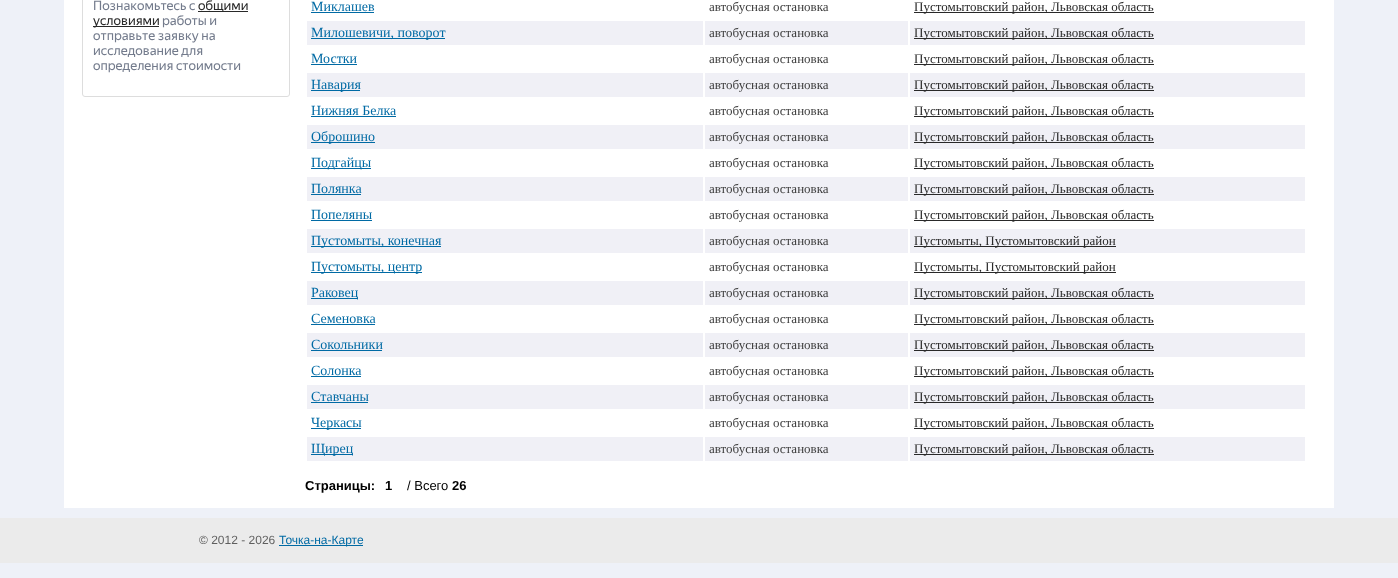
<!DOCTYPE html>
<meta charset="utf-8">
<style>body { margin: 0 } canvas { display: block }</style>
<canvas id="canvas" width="1398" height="578"></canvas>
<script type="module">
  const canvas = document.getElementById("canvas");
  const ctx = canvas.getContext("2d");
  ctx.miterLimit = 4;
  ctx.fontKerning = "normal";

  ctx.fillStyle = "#eef1f8";
  ctx.fillRect(0, 0, 1398, 578);
  ctx.fillStyle = "#ffffff";
  ctx.fillRect(64, 0, 1270, 508);
  ctx.beginPath();
  ctx.roundRect(82.5, -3.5, 207, 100, 2.5);
  ctx.strokeStyle = "#dddddd";
  ctx.stroke();
  ctx.font = "13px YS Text";
  ctx.fillStyle = "#737b8c";
  ctx.fillText("Познакомьтесь с", 93, 10);
  ctx.fillStyle = "#292929";
  ctx.fillRect(198, 11, 50, 1);
  ctx.fillText("общими", 198, 10);
  ctx.fillRect(93, 26, 66, 1);
  ctx.fillText("условиями", 93, 25);
  ctx.fillStyle = "#737b8c";
  ctx.fillText("работы и", 162, 25);
  ctx.fillText("отправьте заявку на", 93, 40);
  ctx.fillText("исследование для", 93, 55);
  ctx.fillText("определения стоимости", 93, 70);
  ctx.font = "14px Liberation Serif";
  ctx.fillStyle = "#006aa4";
  ctx.fillText("Миклашев", 311, 11);
  ctx.fillRect(311, 12, 63, 1);
  ctx.font = "13px Liberation Serif";
  ctx.fillStyle = "#3d3d3d";
  ctx.fillText("автобусная остановка", 709, 11);
  ctx.fillStyle = "#292929";
  ctx.fillRect(914, 12, 240, 1);
  ctx.fillText("Пустомытовский район, Львовская область", 914, 11);
  ctx.fillStyle = "#f0f0f6";
  ctx.fillRect(307, 21, 396, 24);
  ctx.fillStyle = "#006aa4";
  ctx.fillRect(311, 38, 134, 1);
  ctx.font = "14px Liberation Serif";
  ctx.fillText("Милошевичи, поворот", 311, 37);
  ctx.fillStyle = "#f0f0f6";
  ctx.fillRect(705, 21, 203, 24);
  ctx.font = "13px Liberation Serif";
  ctx.fillStyle = "#3d3d3d";
  ctx.fillText("автобусная остановка", 709, 37);
  ctx.fillStyle = "#f0f0f6";
  ctx.fillRect(910, 21, 395, 24);
  ctx.fillStyle = "#292929";
  ctx.fillRect(914, 38, 240, 1);
  ctx.fillText("Пустомытовский район, Львовская область", 914, 37);
  ctx.font = "14px Liberation Serif";
  ctx.fillStyle = "#006aa4";
  ctx.fillText("Мостки", 311, 63);
  ctx.fillRect(311, 64, 46, 1);
  ctx.font = "13px Liberation Serif";
  ctx.fillStyle = "#3d3d3d";
  ctx.fillText("автобусная остановка", 709, 63);
  ctx.fillStyle = "#292929";
  ctx.fillRect(914, 64, 240, 1);
  ctx.fillText("Пустомытовский район, Львовская область", 914, 63);
  ctx.fillStyle = "#f0f0f6";
  ctx.fillRect(307, 73, 396, 24);
  ctx.fillStyle = "#006aa4";
  ctx.fillRect(311, 90, 49, 1);
  ctx.font = "14px Liberation Serif";
  ctx.fillText("Навария", 311, 89);
  ctx.fillStyle = "#f0f0f6";
  ctx.fillRect(705, 73, 203, 24);
  ctx.font = "13px Liberation Serif";
  ctx.fillStyle = "#3d3d3d";
  ctx.fillText("автобусная остановка", 709, 89);
  ctx.fillStyle = "#f0f0f6";
  ctx.fillRect(910, 73, 395, 24);
  ctx.fillStyle = "#292929";
  ctx.fillRect(914, 90, 240, 1);
  ctx.fillText("Пустомытовский район, Львовская область", 914, 89);
  ctx.font = "14px Liberation Serif";
  ctx.fillStyle = "#006aa4";
  ctx.fillText("Нижняя Белка", 311, 115);
  ctx.fillRect(311, 116, 85, 1);
  ctx.font = "13px Liberation Serif";
  ctx.fillStyle = "#3d3d3d";
  ctx.fillText("автобусная остановка", 709, 115);
  ctx.fillStyle = "#292929";
  ctx.fillRect(914, 116, 240, 1);
  ctx.fillText("Пустомытовский район, Львовская область", 914, 115);
  ctx.fillStyle = "#f0f0f6";
  ctx.fillRect(307, 125, 396, 24);
  ctx.fillStyle = "#006aa4";
  ctx.fillRect(311, 142, 64, 1);
  ctx.font = "14px Liberation Serif";
  ctx.fillText("Оброшино", 311, 141);
  ctx.fillStyle = "#f0f0f6";
  ctx.fillRect(705, 125, 203, 24);
  ctx.font = "13px Liberation Serif";
  ctx.fillStyle = "#3d3d3d";
  ctx.fillText("автобусная остановка", 709, 141);
  ctx.fillStyle = "#f0f0f6";
  ctx.fillRect(910, 125, 395, 24);
  ctx.fillStyle = "#292929";
  ctx.fillRect(914, 142, 240, 1);
  ctx.fillText("Пустомытовский район, Львовская область", 914, 141);
  ctx.fillStyle = "#006aa4";
  ctx.fillRect(311, 168, 60, 1);
  ctx.font = "14px Liberation Serif";
  ctx.fillText("Подгайцы", 311, 167);
  ctx.font = "13px Liberation Serif";
  ctx.fillStyle = "#3d3d3d";
  ctx.fillText("автобусная остановка", 709, 167);
  ctx.fillStyle = "#292929";
  ctx.fillRect(914, 168, 240, 1);
  ctx.fillText("Пустомытовский район, Львовская область", 914, 167);
  ctx.fillStyle = "#f0f0f6";
  ctx.fillRect(307, 177, 396, 24);
  ctx.font = "14px Liberation Serif";
  ctx.fillStyle = "#006aa4";
  ctx.fillText("Полянка", 311, 193);
  ctx.fillRect(311, 194, 50, 1);
  ctx.fillStyle = "#f0f0f6";
  ctx.fillRect(705, 177, 203, 24);
  ctx.font = "13px Liberation Serif";
  ctx.fillStyle = "#3d3d3d";
  ctx.fillText("автобусная остановка", 709, 193);
  ctx.fillStyle = "#f0f0f6";
  ctx.fillRect(910, 177, 395, 24);
  ctx.fillStyle = "#292929";
  ctx.fillRect(914, 194, 240, 1);
  ctx.fillText("Пустомытовский район, Львовская область", 914, 193);
  ctx.font = "14px Liberation Serif";
  ctx.fillStyle = "#006aa4";
  ctx.fillText("Попеляны", 311, 219);
  ctx.fillRect(311, 220, 61, 1);
  ctx.font = "13px Liberation Serif";
  ctx.fillStyle = "#3d3d3d";
  ctx.fillText("автобусная остановка", 709, 219);
  ctx.fillStyle = "#292929";
  ctx.fillRect(914, 220, 240, 1);
  ctx.fillText("Пустомытовский район, Львовская область", 914, 219);
  ctx.fillStyle = "#f0f0f6";
  ctx.fillRect(307, 229, 396, 24);
  ctx.fillStyle = "#006aa4";
  ctx.fillRect(311, 246, 130, 1);
  ctx.font = "14px Liberation Serif";
  ctx.fillText("Пустомыты, конечная", 311, 245);
  ctx.fillStyle = "#f0f0f6";
  ctx.fillRect(705, 229, 203, 24);
  ctx.font = "13px Liberation Serif";
  ctx.fillStyle = "#3d3d3d";
  ctx.fillText("автобусная остановка", 709, 245);
  ctx.fillStyle = "#f0f0f6";
  ctx.fillRect(910, 229, 395, 24);
  ctx.fillStyle = "#292929";
  ctx.fillRect(914, 246, 202, 1);
  ctx.fillText("Пустомыты, Пустомытовский район", 914, 245);
  ctx.fillStyle = "#006aa4";
  ctx.fillRect(311, 272, 111, 1);
  ctx.font = "14px Liberation Serif";
  ctx.fillText("Пустомыты, центр", 311, 271);
  ctx.font = "13px Liberation Serif";
  ctx.fillStyle = "#3d3d3d";
  ctx.fillText("автобусная остановка", 709, 271);
  ctx.fillStyle = "#292929";
  ctx.fillRect(914, 272, 202, 1);
  ctx.fillText("Пустомыты, Пустомытовский район", 914, 271);
  ctx.fillStyle = "#f0f0f6";
  ctx.fillRect(307, 281, 396, 24);
  ctx.fillStyle = "#006aa4";
  ctx.fillRect(311, 298, 47, 1);
  ctx.font = "14px Liberation Serif";
  ctx.fillText("Раковец", 311, 297);
  ctx.fillStyle = "#f0f0f6";
  ctx.fillRect(705, 281, 203, 24);
  ctx.font = "13px Liberation Serif";
  ctx.fillStyle = "#3d3d3d";
  ctx.fillText("автобусная остановка", 709, 297);
  ctx.fillStyle = "#f0f0f6";
  ctx.fillRect(910, 281, 395, 24);
  ctx.fillStyle = "#292929";
  ctx.fillRect(914, 298, 240, 1);
  ctx.fillText("Пустомытовский район, Львовская область", 914, 297);
  ctx.font = "14px Liberation Serif";
  ctx.fillStyle = "#006aa4";
  ctx.fillText("Семеновка", 311, 323);
  ctx.fillRect(311, 324, 64, 1);
  ctx.font = "13px Liberation Serif";
  ctx.fillStyle = "#3d3d3d";
  ctx.fillText("автобусная остановка", 709, 323);
  ctx.fillStyle = "#292929";
  ctx.fillRect(914, 324, 240, 1);
  ctx.fillText("Пустомытовский район, Львовская область", 914, 323);
  ctx.fillStyle = "#f0f0f6";
  ctx.fillRect(307, 333, 396, 24);
  ctx.font = "14px Liberation Serif";
  ctx.fillStyle = "#006aa4";
  ctx.fillText("Сокольники", 311, 349);
  ctx.fillRect(311, 350, 71, 1);
  ctx.fillStyle = "#f0f0f6";
  ctx.fillRect(705, 333, 203, 24);
  ctx.font = "13px Liberation Serif";
  ctx.fillStyle = "#3d3d3d";
  ctx.fillText("автобусная остановка", 709, 349);
  ctx.fillStyle = "#f0f0f6";
  ctx.fillRect(910, 333, 395, 24);
  ctx.fillStyle = "#292929";
  ctx.fillRect(914, 350, 240, 1);
  ctx.fillText("Пустомытовский район, Львовская область", 914, 349);
  ctx.font = "14px Liberation Serif";
  ctx.fillStyle = "#006aa4";
  ctx.fillText("Солонка", 311, 375);
  ctx.fillRect(311, 376, 50, 1);
  ctx.font = "13px Liberation Serif";
  ctx.fillStyle = "#3d3d3d";
  ctx.fillText("автобусная остановка", 709, 375);
  ctx.fillStyle = "#292929";
  ctx.fillRect(914, 376, 240, 1);
  ctx.fillText("Пустомытовский район, Львовская область", 914, 375);
  ctx.fillStyle = "#f0f0f6";
  ctx.fillRect(307, 385, 396, 24);
  ctx.font = "14px Liberation Serif";
  ctx.fillStyle = "#006aa4";
  ctx.fillText("Ставчаны", 311, 401);
  ctx.fillRect(311, 402, 57, 1);
  ctx.fillStyle = "#f0f0f6";
  ctx.fillRect(705, 385, 203, 24);
  ctx.font = "13px Liberation Serif";
  ctx.fillStyle = "#3d3d3d";
  ctx.fillText("автобусная остановка", 709, 401);
  ctx.fillStyle = "#f0f0f6";
  ctx.fillRect(910, 385, 395, 24);
  ctx.fillStyle = "#292929";
  ctx.fillRect(914, 402, 240, 1);
  ctx.fillText("Пустомытовский район, Львовская область", 914, 401);
  ctx.fillStyle = "#006aa4";
  ctx.fillRect(311, 428, 50, 1);
  ctx.font = "14px Liberation Serif";
  ctx.fillText("Черкасы", 311, 427);
  ctx.font = "13px Liberation Serif";
  ctx.fillStyle = "#3d3d3d";
  ctx.fillText("автобусная остановка", 709, 427);
  ctx.fillStyle = "#292929";
  ctx.fillRect(914, 428, 240, 1);
  ctx.fillText("Пустомытовский район, Львовская область", 914, 427);
  ctx.fillStyle = "#f0f0f6";
  ctx.fillRect(307, 437, 396, 24);
  ctx.fillStyle = "#006aa4";
  ctx.fillRect(311, 454, 42, 1);
  ctx.font = "14px Liberation Serif";
  ctx.fillText("Щирец", 311, 453);
  ctx.fillStyle = "#f0f0f6";
  ctx.fillRect(705, 437, 203, 24);
  ctx.font = "13px Liberation Serif";
  ctx.fillStyle = "#3d3d3d";
  ctx.fillText("автобусная остановка", 709, 453);
  ctx.fillStyle = "#f0f0f6";
  ctx.fillRect(910, 437, 395, 24);
  ctx.fillStyle = "#292929";
  ctx.fillRect(914, 454, 240, 1);
  ctx.fillText("Пустомытовский район, Львовская область", 914, 453);
  ctx.font = "bold 13px Liberation Sans";
  ctx.fillStyle = "#000000";
  ctx.fillText("Страницы:", 305, 490);
  ctx.fillText("1", 385, 490);
  ctx.font = "13px Liberation Sans";
  ctx.fillText("/ Всего", 407, 490);
  ctx.font = "bold 13px Liberation Sans";
  ctx.fillText("26", 452, 490);
  ctx.fillStyle = "#ebebeb";
  ctx.fillRect(0, 518, 1398, 45);
  ctx.font = "12px Liberation Sans";
  ctx.fillStyle = "#5f5f5f";
  ctx.fillText("© 2012 - 2026", 199, 544);
  ctx.fillStyle = "#006aa4";
  ctx.fillRect(279, 545, 84, 1);
  ctx.fillText("Точка-на-Карте", 279, 544);
</script>
